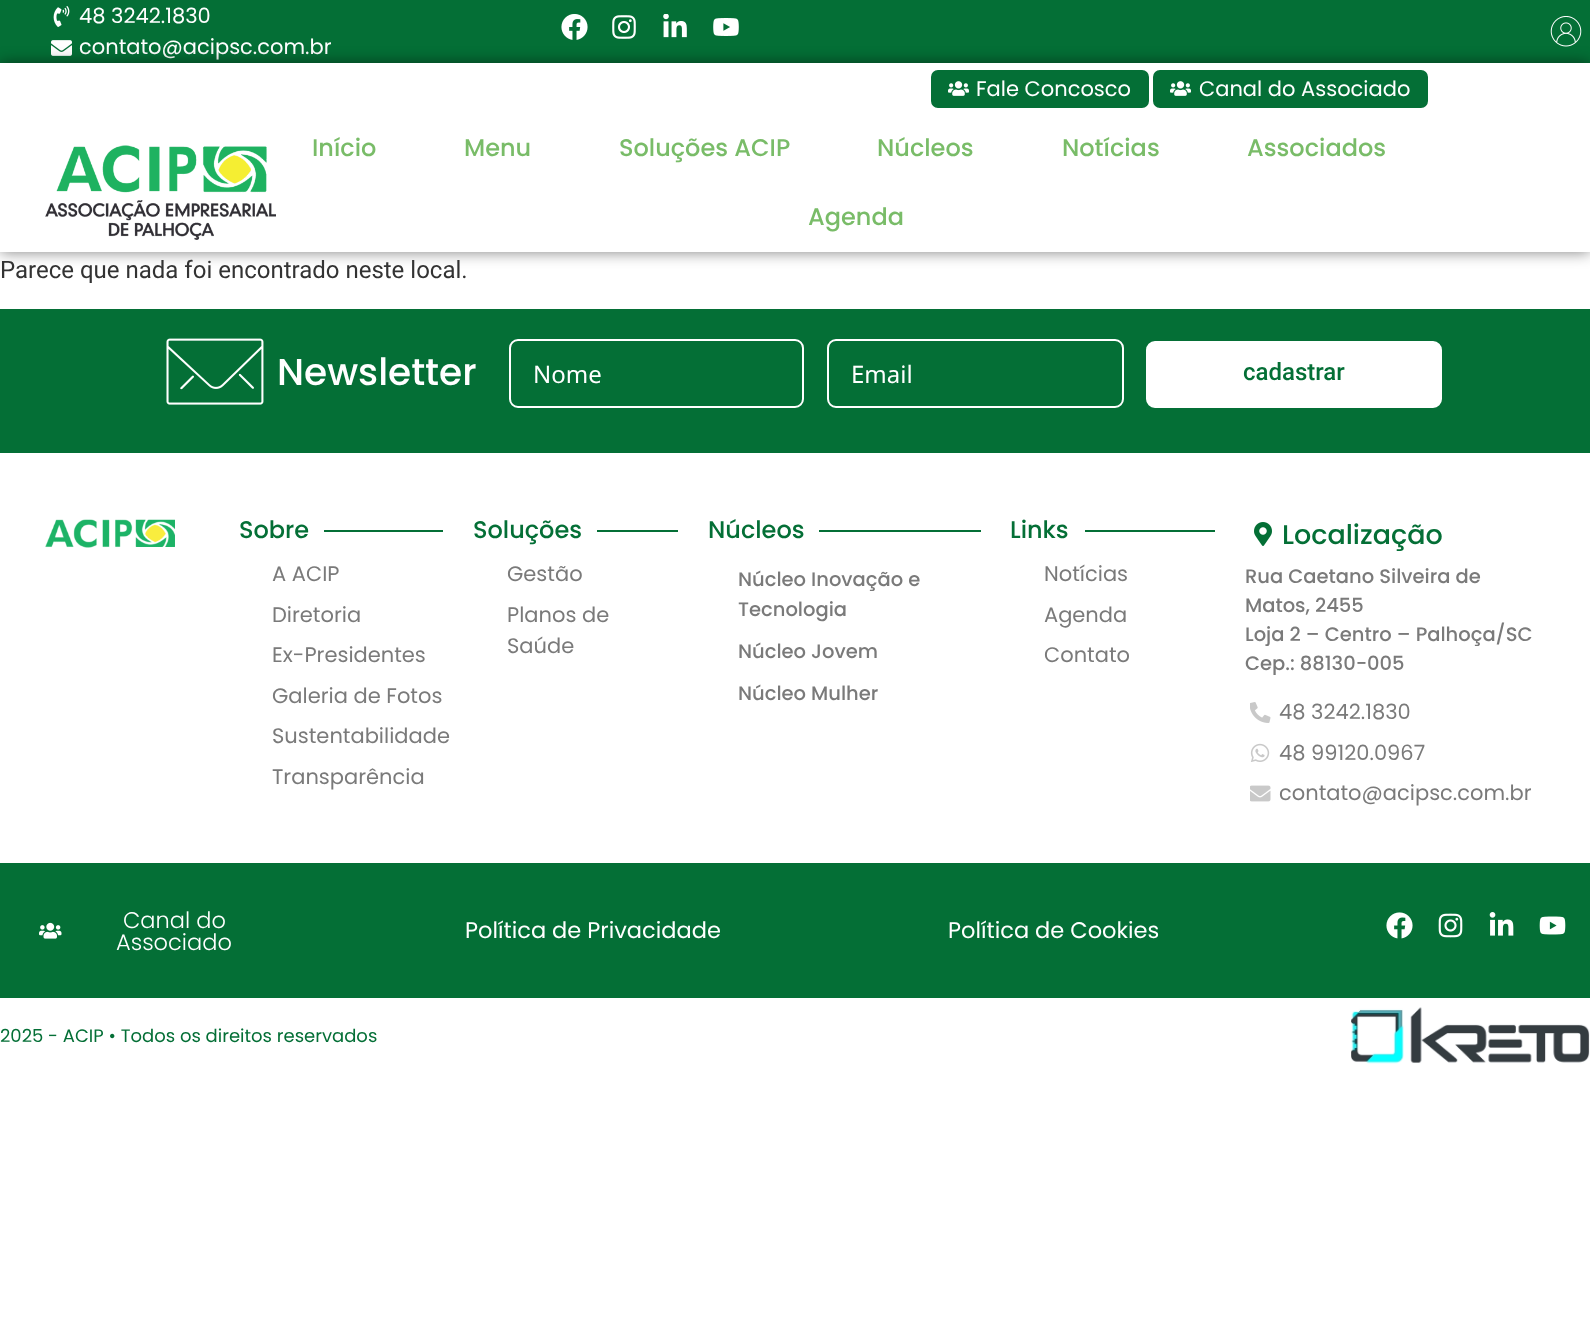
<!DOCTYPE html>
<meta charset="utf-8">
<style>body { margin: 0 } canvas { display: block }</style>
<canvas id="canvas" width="1590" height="1321"></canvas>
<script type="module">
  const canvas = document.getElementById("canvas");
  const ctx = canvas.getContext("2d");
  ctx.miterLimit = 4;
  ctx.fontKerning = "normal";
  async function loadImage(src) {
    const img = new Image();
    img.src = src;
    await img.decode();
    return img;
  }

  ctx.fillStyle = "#ffffff";
  ctx.fillRect(0, 0, 1590, 1321);
  ctx.fillStyle = "#046f36";
  ctx.fillRect(0, 0, 1590, 63);
  ctx.drawImage(await loadImage("img1.png"), 53, 6, 17, 21);
  ctx.font = "21px Poppins";
  ctx.fillStyle = "#ffffff";
  ctx.fillText("48 3242.1830", 79, 23);
  ctx.drawImage(await loadImage("img2.png"), 51, 40, 21, 16);
  ctx.fillText("contato@acipsc.com.br", 79, 54);
  ctx.drawImage(await loadImage("img3.png"), 561, 14, 27, 26);
  ctx.drawImage(await loadImage("img4.png"), 612, 15, 24, 24);
  ctx.drawImage(await loadImage("img5.png"), 663, 14, 24, 24);
  ctx.drawImage(await loadImage("img6.png"), 713, 18, 26, 18);
  ctx.drawImage(await loadImage("img7.png"), 1550, 16, 32, 31);
  ctx.save();
  ctx.beginPath();
  ctx.moveTo(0, 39);
  ctx.lineTo(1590, 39);
  ctx.lineTo(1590, 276);
  ctx.lineTo(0, 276);
  ctx.closePath();
  ctx.moveTo(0, 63);
  ctx.lineTo(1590, 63);
  ctx.lineTo(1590, 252);
  ctx.lineTo(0, 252);
  ctx.closePath();
  ctx.clip("evenodd");
  ctx.fillStyle = "rgba(0, 0, 0, 0.5)";
  ctx.filter = "blur(7.5px)";
  ctx.beginPath();
  ctx.rect(0, 63, 1590, 189);
  ctx.fill();
  ctx.filter = "none";
  ctx.restore();
  ctx.drawImage(await loadImage("img8.png"), 45, 145, 231, 95);
  ctx.fillStyle = "#046f36";
  ctx.beginPath();
  ctx.roundRect(930, 69, 220, 40, 8);
  ctx.fill();
  ctx.strokeStyle = "#ffffff";
  ctx.lineWidth = 2;
  ctx.stroke();
  ctx.drawImage(await loadImage("img9.png"), 948, 81, 21, 15);
  ctx.fillStyle = "#ffffff";
  ctx.fillText("Fale Concosco", 976, 96);
  ctx.fillStyle = "#046f36";
  ctx.beginPath();
  ctx.roundRect(1152, 69, 277, 40, 8);
  ctx.fill();
  ctx.stroke();
  ctx.drawImage(await loadImage("img9.png"), 1170, 81, 21, 15);
  ctx.fillStyle = "#ffffff";
  ctx.fillText("Canal do Associado", 1199, 96);
  ctx.font = "500 24px Poppins";
  ctx.fillStyle = "#79bc68";
  ctx.fillText("Início", 312, 156);
  ctx.fillText("Menu", 464, 156);
  ctx.fillText("Soluções ACIP", 619, 156);
  ctx.fillText("Núcleos", 877, 156);
  ctx.fillText("Notícias", 1062, 156);
  ctx.fillText("Associados", 1247, 156);
  ctx.fillText("Agenda", 808, 225);
  ctx.font = "24px Roboto";
  ctx.fillStyle = "#333333";
  ctx.fillText("Parece que nada foi encontrado neste local.", 0, 278);
  ctx.fillStyle = "#046f36";
  ctx.fillRect(0, 309, 1590, 144);
  ctx.drawImage(await loadImage("img10.png"), 166, 338, 98, 67);
  ctx.font = "500 37.5px Poppins";
  ctx.fillStyle = "#ffffff";
  ctx.fillText("Newsletter", 277, 385);
  ctx.beginPath();
  ctx.roundRect(510, 340, 293, 67, 8);
  ctx.stroke();
  ctx.font = "24px Noto Sans";
  ctx.fillText("Nome", 533, 383);
  ctx.beginPath();
  ctx.roundRect(828, 340, 295, 67, 8);
  ctx.stroke();
  ctx.fillText("Email", 851, 383);
  ctx.beginPath();
  ctx.roundRect(1147, 342, 294, 65, 8);
  ctx.fill();
  ctx.stroke();
  ctx.font = "500 24px Roboto";
  ctx.fillStyle = "#046f36";
  ctx.fillText("cadastrar", 1243, 380);
  ctx.drawImage(await loadImage("img11.png"), 45, 519, 130, 29);
  ctx.font = "500 24px Poppins";
  ctx.fillText("Sobre", 239, 538);
  ctx.fillRect(324, 530, 119, 2);
  ctx.font = "21px Poppins";
  ctx.fillStyle = "#7a7a7a";
  ctx.fillText("A ACIP", 272, 581);
  ctx.fillText("Diretoria", 272, 622);
  ctx.fillText("Ex-Presidentes", 272, 662);
  ctx.fillText("Galeria de Fotos", 272, 703);
  ctx.fillText("Sustentabilidade", 272, 743);
  ctx.fillText("Transparência", 272, 784);
  ctx.font = "500 24px Poppins";
  ctx.fillStyle = "#046f36";
  ctx.fillText("Soluções", 473, 538);
  ctx.fillRect(597, 530, 81, 2);
  ctx.font = "21px Poppins";
  ctx.fillStyle = "#7a7a7a";
  ctx.fillText("Gestão", 507, 581);
  ctx.fillText("Planos de", 507, 622);
  ctx.fillText("Saúde", 507, 653);
  ctx.font = "500 24px Poppins";
  ctx.fillStyle = "#046f36";
  ctx.fillText("Núcleos", 708, 538);
  ctx.fillRect(819, 530, 162, 2);
  ctx.font = "500 19.5px Poppins";
  ctx.fillStyle = "#7a7a7a";
  ctx.fillText("Núcleo Inovação e", 738, 586);
  ctx.fillText("Tecnologia", 738, 616);
  ctx.fillText("Núcleo Jovem", 738, 658);
  ctx.fillText("Núcleo Mulher", 738, 700);
  ctx.font = "500 24px Poppins";
  ctx.fillStyle = "#046f36";
  ctx.fillText("Links", 1010, 538);
  ctx.fillRect(1085, 530, 130, 2);
  ctx.font = "21px Poppins";
  ctx.fillStyle = "#7a7a7a";
  ctx.fillText("Notícias", 1044, 581);
  ctx.fillText("Agenda", 1044, 622);
  ctx.fillText("Contato", 1044, 662);
  ctx.drawImage(await loadImage("img12.png"), 1254, 522, 18, 24);
  ctx.font = "500 27px Poppins";
  ctx.fillStyle = "#046f36";
  ctx.fillText("Localização", 1282, 544);
  ctx.font = "500 19.5px Poppins";
  ctx.fillStyle = "#7a7a7a";
  ctx.fillText("Rua Caetano Silveira de", 1245, 583);
  ctx.fillText("Matos, 2455", 1245, 612);
  ctx.fillText("Loja 2 – Centro – Palhoça/SC", 1245, 641);
  ctx.fillText("Cep.: 88130-005", 1245, 670);
  ctx.drawImage(await loadImage("img13.png"), 1250, 702, 21, 21);
  ctx.font = "21px Poppins";
  ctx.fillText("48 3242.1830", 1279, 719);
  ctx.drawImage(await loadImage("img14.png"), 1250, 743, 20, 19);
  ctx.fillText("48 99120.0967", 1279, 760);
  ctx.drawImage(await loadImage("img15.png"), 1250, 785, 21, 17);
  ctx.fillText("contato@acipsc.com.br", 1279, 800);
  ctx.fillStyle = "#046f36";
  ctx.fillRect(0, 863, 1590, 135);
  ctx.drawImage(await loadImage("img16.png"), 39, 922, 23, 17);
  ctx.font = "300 22.5px Poppins";
  ctx.fillStyle = "#ffffff";
  ctx.fillText("Canal do", 123, 928);
  ctx.fillText("Associado", 116, 950);
  ctx.font = "22.5px Poppins";
  ctx.fillText("Política de Privacidade", 465, 938);
  ctx.fillText("Política de Cookies", 948, 938);
  ctx.drawImage(await loadImage("img17.png"), 1386, 912, 27, 27);
  ctx.drawImage(await loadImage("img18.png"), 1438, 913, 25, 25);
  ctx.drawImage(await loadImage("img19.png"), 1489, 912, 25, 24);
  ctx.drawImage(await loadImage("img20.png"), 1539, 916, 27, 19);
  ctx.font = "18px Poppins";
  ctx.fillStyle = "#046f36";
  ctx.fillText("2025 - ACIP • Todos os direitos reservados", 0, 1042);
  ctx.drawImage(await loadImage("img21.png"), 1351, 1007, 239, 57);
</script>
